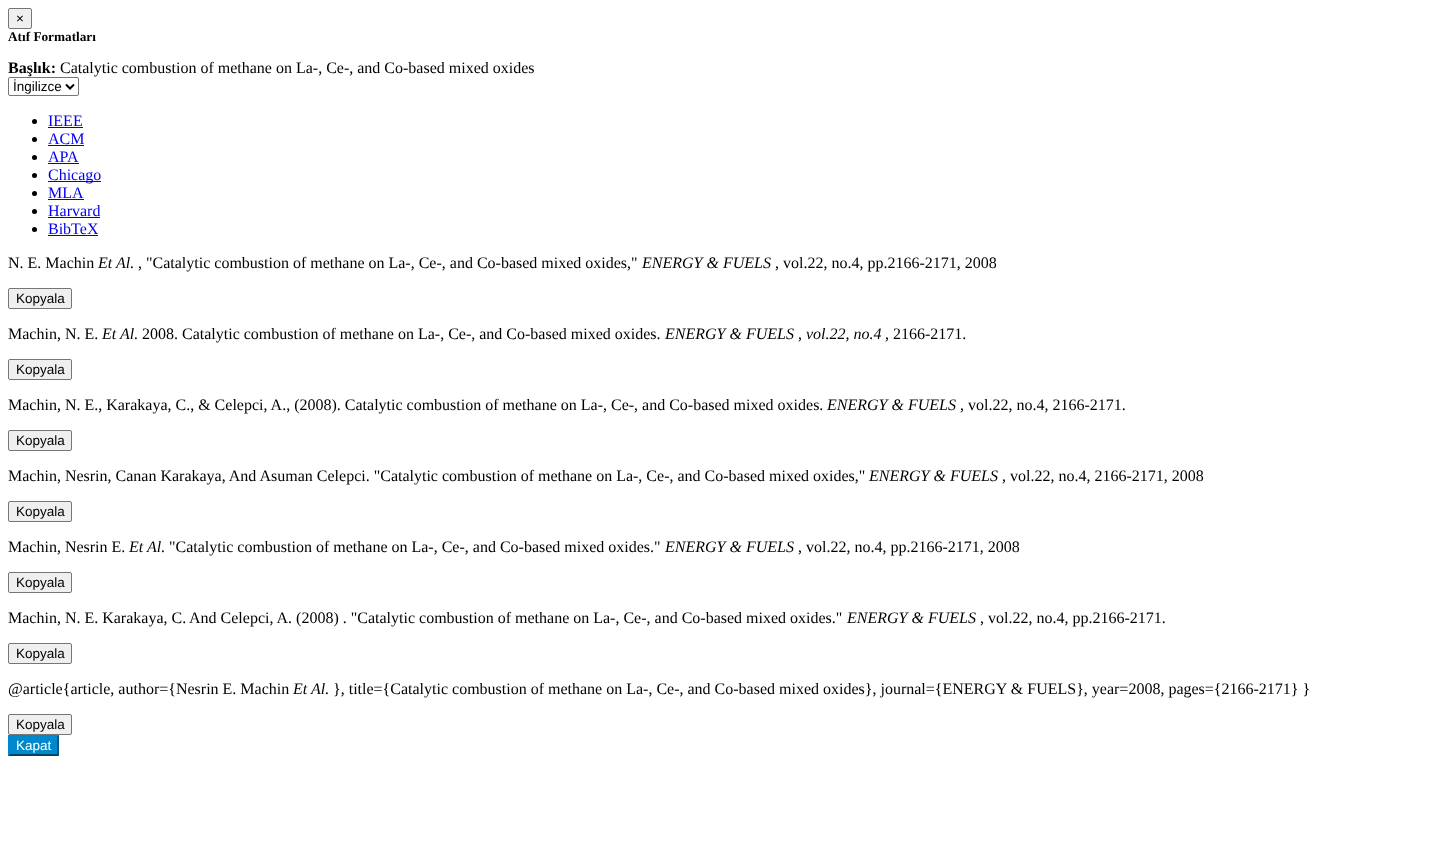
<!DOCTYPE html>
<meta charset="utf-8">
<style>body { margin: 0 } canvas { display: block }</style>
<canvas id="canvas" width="1442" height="845"></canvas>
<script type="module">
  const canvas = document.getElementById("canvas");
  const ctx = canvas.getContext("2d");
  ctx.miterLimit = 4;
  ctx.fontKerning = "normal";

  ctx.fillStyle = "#ffffff";
  ctx.fillRect(0, 0, 1442, 845);
  ctx.fillStyle = "#efefef";
  ctx.beginPath();
  ctx.roundRect(8.5, 8.5, 23, 20, 1.5);
  ctx.fill();
  ctx.strokeStyle = "#767676";
  ctx.stroke();
  ctx.font = "13.5px Liberation Sans";
  ctx.fillStyle = "#000000";
  ctx.fillText("×", 16, 23);
  ctx.font = "bold 13.25px Liberation Serif";
  ctx.fillText("Atıf Formatları", 8, 41);
  ctx.font = "bold 16px Liberation Serif";
  ctx.fillText("Başlık:", 8, 73);
  ctx.font = "16px Liberation Serif";
  ctx.fillText("Catalytic combustion of methane on La-, Ce-, and Co-based mixed oxides", 60, 73);
  ctx.beginPath();
  ctx.roundRect(8.5, 77.5, 70, 18, 1.5);
  ctx.stroke();
  ctx.beginPath();
  ctx.moveTo(66, 84.5);
  ctx.lineTo(70, 88.5);
  ctx.lineTo(74, 84.5);
  ctx.strokeStyle = "#000000";
  ctx.lineWidth = 2;
  ctx.stroke();
  ctx.font = "13.5px Liberation Sans";
  ctx.fillText("İngilizce", 13, 91);
  ctx.beginPath();
  ctx.arc(34.5, 121.5, 2.5, 0, Math.PI * 2);
  ctx.fill();
  ctx.font = "16px Liberation Serif";
  ctx.fillStyle = "#0000ee";
  ctx.fillText("IEEE", 48, 126);
  ctx.fillRect(48, 127, 35, 1);
  ctx.fillStyle = "#000000";
  ctx.beginPath();
  ctx.arc(34.5, 139.5, 2.5, 0, Math.PI * 2);
  ctx.fill();
  ctx.fillStyle = "#0000ee";
  ctx.fillText("ACM", 48, 144);
  ctx.fillRect(48, 145, 36, 1);
  ctx.fillStyle = "#000000";
  ctx.beginPath();
  ctx.arc(34.5, 157.5, 2.5, 0, Math.PI * 2);
  ctx.fill();
  ctx.fillStyle = "#0000ee";
  ctx.fillText("APA", 48, 162);
  ctx.fillRect(48, 163, 31, 1);
  ctx.fillStyle = "#000000";
  ctx.beginPath();
  ctx.arc(34.5, 175.5, 2.5, 0, Math.PI * 2);
  ctx.fill();
  ctx.fillStyle = "#0000ee";
  ctx.fillRect(48, 181, 53, 1);
  ctx.fillText("Chicago", 48, 180);
  ctx.fillStyle = "#000000";
  ctx.beginPath();
  ctx.arc(34.5, 193.5, 2.5, 0, Math.PI * 2);
  ctx.fill();
  ctx.fillStyle = "#0000ee";
  ctx.fillText("MLA", 48, 198);
  ctx.fillRect(48, 199, 36, 1);
  ctx.fillStyle = "#000000";
  ctx.beginPath();
  ctx.arc(34.5, 211.5, 2.5, 0, Math.PI * 2);
  ctx.fill();
  ctx.fillStyle = "#0000ee";
  ctx.fillText("Harvard", 48, 216);
  ctx.fillRect(48, 217, 52, 1);
  ctx.fillStyle = "#000000";
  ctx.beginPath();
  ctx.arc(34.5, 229.5, 2.5, 0, Math.PI * 2);
  ctx.fill();
  ctx.fillStyle = "#0000ee";
  ctx.fillText("BibTeX", 48, 234);
  ctx.fillRect(48, 235, 50, 1);
  ctx.fillStyle = "#000000";
  ctx.fillText("N. E. Machin", 8, 268);
  ctx.font = "italic 16px Liberation Serif";
  ctx.fillText("Et Al.", 98, 268);
  ctx.font = "16px Liberation Serif";
  ctx.fillText(", \"Catalytic combustion of methane on La-, Ce-, and Co-based mixed oxides,\"", 138, 268);
  ctx.font = "italic 16px Liberation Serif";
  ctx.fillText("ENERGY & FUELS", 642, 268);
  ctx.font = "16px Liberation Serif";
  ctx.fillText(", vol.22, no.4, pp.2166-2171, 2008", 775, 268);
  ctx.fillStyle = "#efefef";
  ctx.beginPath();
  ctx.roundRect(8.5, 288.5, 63, 20, 1.5);
  ctx.fill();
  ctx.strokeStyle = "#767676";
  ctx.lineWidth = 1;
  ctx.stroke();
  ctx.font = "13.5px Liberation Sans";
  ctx.fillStyle = "#000000";
  ctx.fillText("Kopyala", 16, 303);
  ctx.font = "16px Liberation Serif";
  ctx.fillText("Machin, N. E.", 8, 339);
  ctx.font = "italic 16px Liberation Serif";
  ctx.fillText("Et Al.", 102, 339);
  ctx.font = "16px Liberation Serif";
  ctx.fillText("2008. Catalytic combustion of methane on La-, Ce-, and Co-based mixed oxides.", 142, 339);
  ctx.font = "italic 16px Liberation Serif";
  ctx.fillText("ENERGY & FUELS", 665, 339);
  ctx.font = "16px Liberation Serif";
  ctx.fillText(",", 798, 339);
  ctx.font = "italic 16px Liberation Serif";
  ctx.fillText("vol.22, no.4", 806, 339);
  ctx.font = "16px Liberation Serif";
  ctx.fillText(", 2166-2171.", 885, 339);
  ctx.fillStyle = "#efefef";
  ctx.beginPath();
  ctx.roundRect(8.5, 359.5, 63, 20, 1.5);
  ctx.fill();
  ctx.stroke();
  ctx.font = "13.5px Liberation Sans";
  ctx.fillStyle = "#000000";
  ctx.fillText("Kopyala", 16, 374);
  ctx.font = "16px Liberation Serif";
  ctx.fillText("Machin, N. E., Karakaya, C., & Celepci, A., (2008). Catalytic combustion of methane on La-, Ce-, and Co-based mixed oxides.", 8, 410);
  ctx.font = "italic 16px Liberation Serif";
  ctx.fillText("ENERGY & FUELS", 827, 410);
  ctx.font = "16px Liberation Serif";
  ctx.fillText(", vol.22, no.4, 2166-2171.", 960, 410);
  ctx.fillStyle = "#efefef";
  ctx.beginPath();
  ctx.roundRect(8.5, 430.5, 63, 20, 1.5);
  ctx.fill();
  ctx.stroke();
  ctx.font = "13.5px Liberation Sans";
  ctx.fillStyle = "#000000";
  ctx.fillText("Kopyala", 16, 445);
  ctx.font = "16px Liberation Serif";
  ctx.fillText("Machin, Nesrin, Canan Karakaya, And Asuman Celepci. \"Catalytic combustion of methane on La-, Ce-, and Co-based mixed oxides,\"", 8, 481);
  ctx.font = "italic 16px Liberation Serif";
  ctx.fillText("ENERGY & FUELS", 869, 481);
  ctx.font = "16px Liberation Serif";
  ctx.fillText(", vol.22, no.4, 2166-2171, 2008", 1002, 481);
  ctx.fillStyle = "#efefef";
  ctx.beginPath();
  ctx.roundRect(8.5, 501.5, 63, 20, 1.5);
  ctx.fill();
  ctx.stroke();
  ctx.font = "13.5px Liberation Sans";
  ctx.fillStyle = "#000000";
  ctx.fillText("Kopyala", 16, 516);
  ctx.font = "16px Liberation Serif";
  ctx.fillText("Machin, Nesrin E.", 8, 552);
  ctx.font = "italic 16px Liberation Serif";
  ctx.fillText("Et Al.", 129, 552);
  ctx.font = "16px Liberation Serif";
  ctx.fillText("\"Catalytic combustion of methane on La-, Ce-, and Co-based mixed oxides.\"", 169, 552);
  ctx.font = "italic 16px Liberation Serif";
  ctx.fillText("ENERGY & FUELS", 665, 552);
  ctx.font = "16px Liberation Serif";
  ctx.fillText(", vol.22, no.4, pp.2166-2171, 2008", 798, 552);
  ctx.fillStyle = "#efefef";
  ctx.beginPath();
  ctx.roundRect(8.5, 572.5, 63, 20, 1.5);
  ctx.fill();
  ctx.stroke();
  ctx.font = "13.5px Liberation Sans";
  ctx.fillStyle = "#000000";
  ctx.fillText("Kopyala", 16, 587);
  ctx.font = "16px Liberation Serif";
  ctx.fillText("Machin, N. E. Karakaya, C.", 8, 623);
  ctx.fillText("And Celepci, A. (2008) . \"Catalytic combustion of methane on La-, Ce-, and Co-based mixed oxides.\"", 189, 623);
  ctx.font = "italic 16px Liberation Serif";
  ctx.fillText("ENERGY & FUELS", 847, 623);
  ctx.font = "16px Liberation Serif";
  ctx.fillText(", vol.22, no.4, pp.2166-2171.", 980, 623);
  ctx.fillStyle = "#efefef";
  ctx.beginPath();
  ctx.roundRect(8.5, 643.5, 63, 20, 1.5);
  ctx.fill();
  ctx.stroke();
  ctx.font = "13.5px Liberation Sans";
  ctx.fillStyle = "#000000";
  ctx.fillText("Kopyala", 16, 658);
  ctx.font = "16px Liberation Serif";
  ctx.fillText("@article{article, author={Nesrin E. Machin", 8, 694);
  ctx.font = "italic 16px Liberation Serif";
  ctx.fillText("Et Al.", 293, 694);
  ctx.font = "16px Liberation Serif";
  ctx.fillText("}, title={Catalytic combustion of methane on La-, Ce-, and Co-based mixed oxides}, journal={ENERGY & FUELS}, year=2008, pages={2166-2171} }", 333, 694);
  ctx.fillStyle = "#efefef";
  ctx.beginPath();
  ctx.roundRect(8.5, 714.5, 63, 20, 1.5);
  ctx.fill();
  ctx.stroke();
  ctx.font = "13.5px Liberation Sans";
  ctx.fillStyle = "#000000";
  ctx.fillText("Kopyala", 16, 729);
  ctx.fillStyle = "#0088cc";
  ctx.fillRect(8, 735, 51, 21);
  ctx.fillStyle = "#005b88";
  ctx.beginPath();
  ctx.moveTo(59, 735);
  ctx.lineTo(59, 756);
  ctx.lineTo(57, 754);
  ctx.lineTo(57, 737);
  ctx.closePath();
  ctx.fill();
  ctx.fillStyle = "#004466";
  ctx.beginPath();
  ctx.moveTo(59, 756);
  ctx.lineTo(8, 756);
  ctx.lineTo(10, 754);
  ctx.lineTo(57, 754);
  ctx.closePath();
  ctx.fill();
  ctx.fillStyle = "#0088cc";
  ctx.beginPath();
  ctx.moveTo(8, 756);
  ctx.lineTo(8, 735);
  ctx.lineTo(10, 737);
  ctx.lineTo(10, 754);
  ctx.closePath();
  ctx.fill();
  ctx.fillStyle = "#ffffff";
  ctx.fillText("Kapat", 16, 750);
</script>
